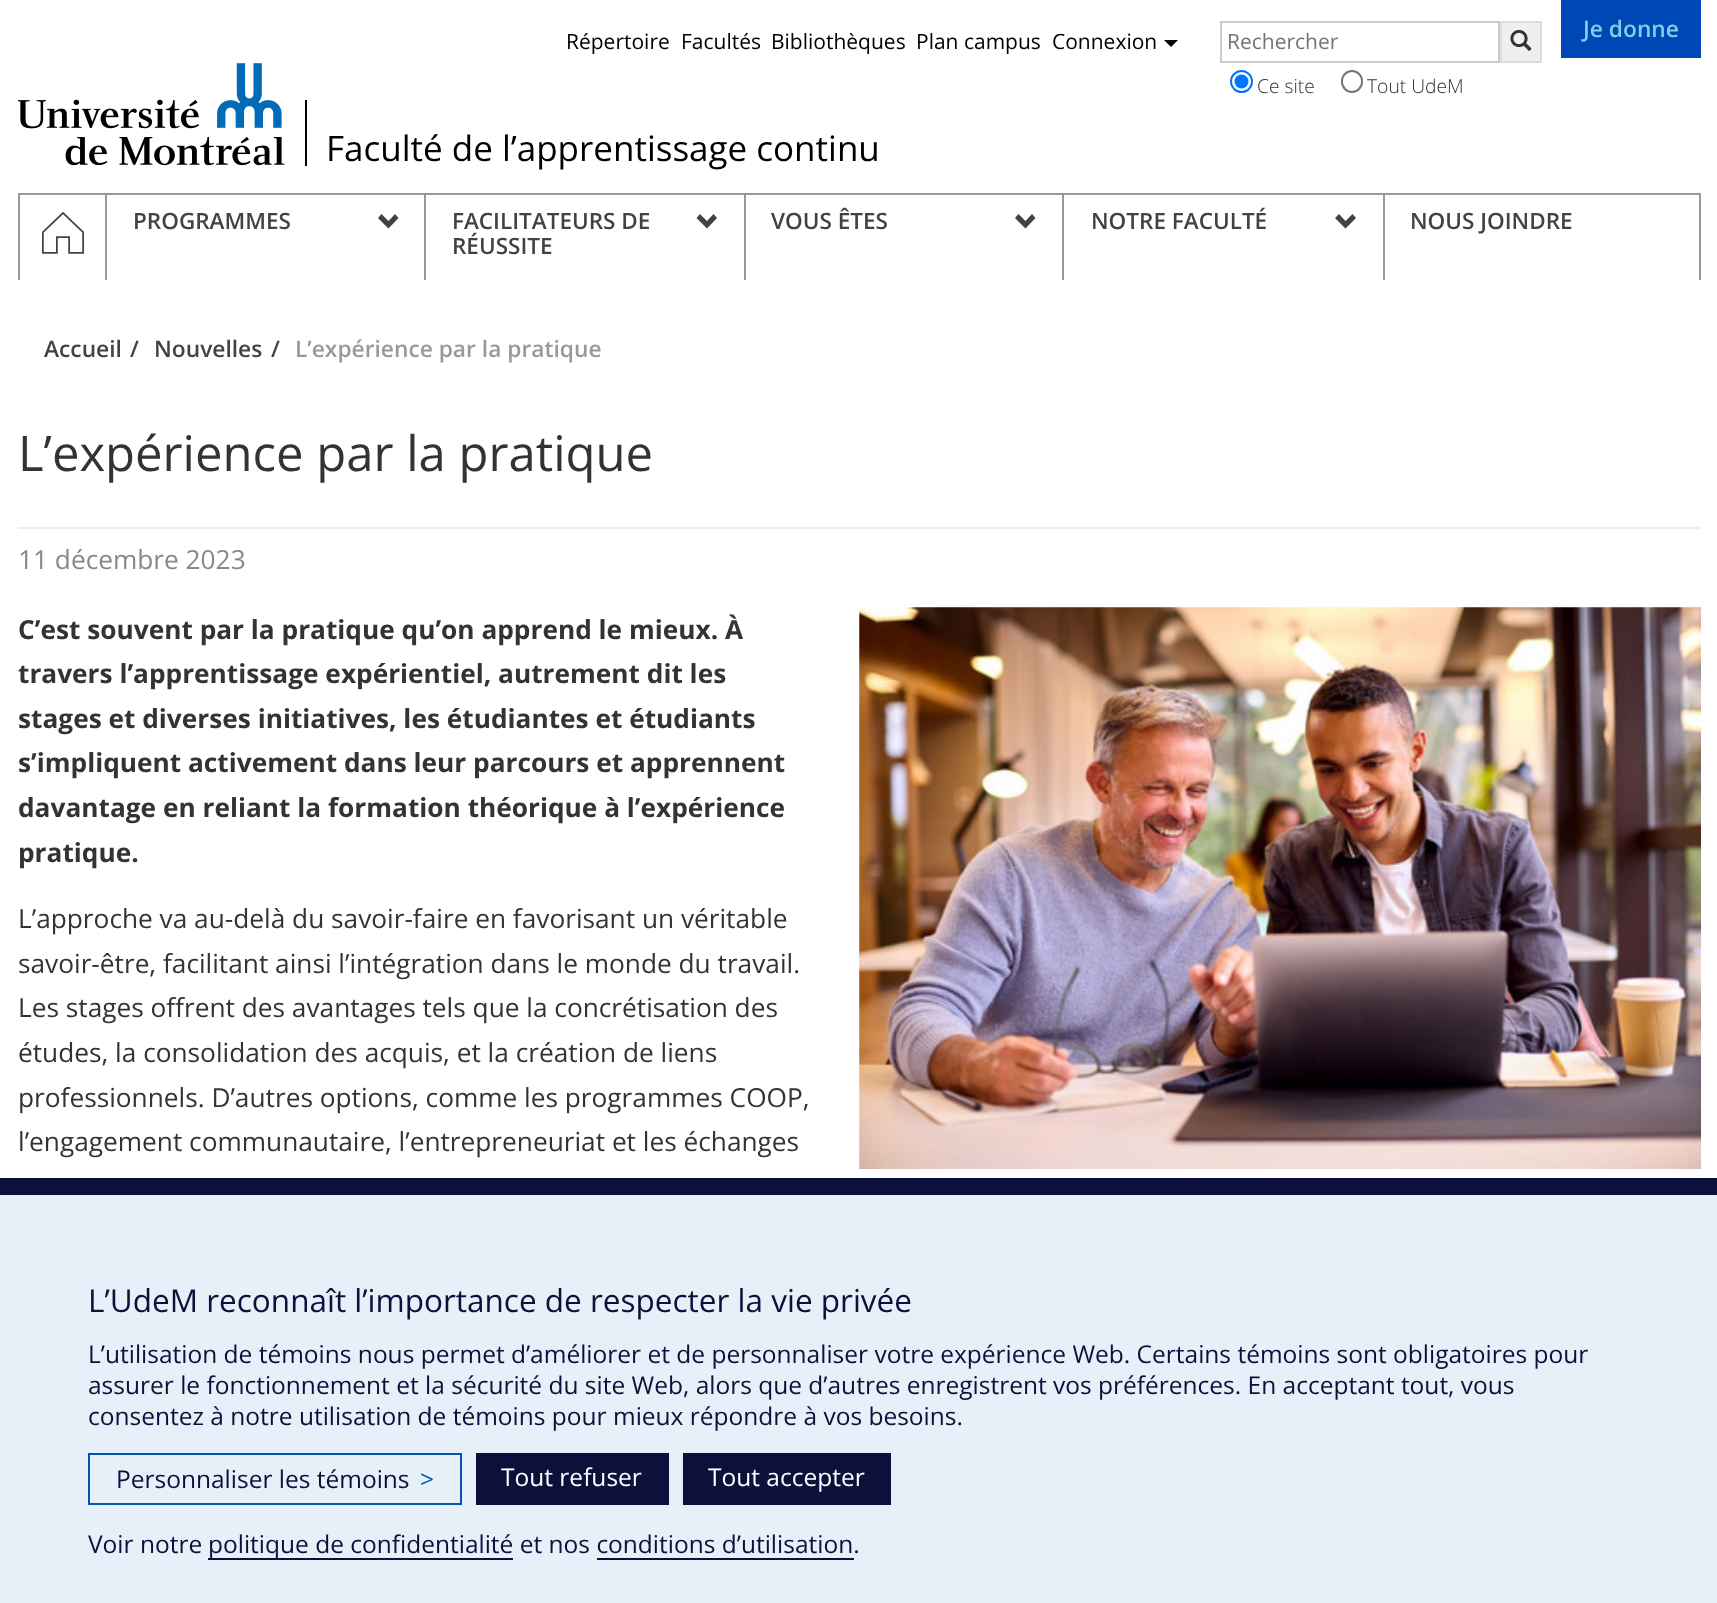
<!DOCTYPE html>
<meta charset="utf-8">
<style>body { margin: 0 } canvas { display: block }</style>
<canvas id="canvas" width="1717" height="1603"></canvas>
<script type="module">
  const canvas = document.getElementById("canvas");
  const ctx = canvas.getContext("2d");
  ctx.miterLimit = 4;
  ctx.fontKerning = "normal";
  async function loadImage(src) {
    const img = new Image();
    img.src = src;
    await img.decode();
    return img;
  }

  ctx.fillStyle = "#ffffff";
  ctx.fillRect(0, 0, 1717, 1603);
  ctx.font = "21px Open Sans";
  ctx.fillStyle = "#000000";
  ctx.fillText("Répertoire", 566, 49);
  ctx.fillText("Facultés", 681, 49);
  ctx.fillText("Bibliothèques", 771, 49);
  ctx.fillText("Plan campus", 916, 49);
  ctx.fillText("Connexion", 1052, 49);
  ctx.beginPath();
  ctx.moveTo(1164, 40);
  ctx.lineTo(1178, 40);
  ctx.lineTo(1171, 47);
  ctx.closePath();
  ctx.fill();
  ctx.strokeStyle = "#cccccc";
  ctx.lineWidth = 2;
  ctx.strokeRect(1221, 22, 278, 40);
  ctx.fillStyle = "#757575";
  ctx.fillText("Rechercher", 1227, 49);
  ctx.fillStyle = "#efefef";
  ctx.beginPath();
  ctx.rect(1501, 22, 40, 40);
  ctx.fill();
  ctx.strokeStyle = "#dddddd";
  ctx.stroke();
  ctx.drawImage(await loadImage("img1.png"), 1510, 29, 22, 22);
  ctx.beginPath();
  ctx.arc(1241.5, 81.5, 10.5, 0, Math.PI * 2);
  ctx.strokeStyle = "#0075ff";
  ctx.stroke();
  ctx.fillStyle = "#0075ff";
  ctx.beginPath();
  ctx.arc(1241.5, 81.5, 7, 0, Math.PI * 2);
  ctx.fill();
  ctx.font = "300 19.25px Open Sans";
  ctx.fillStyle = "#333333";
  ctx.fillText("Ce site", 1257, 93);
  ctx.beginPath();
  ctx.roundRect(1342, 71, 20, 21, 10);
  ctx.strokeStyle = "#767676";
  ctx.stroke();
  ctx.fillText("Tout UdeM", 1367, 93);
  ctx.fillStyle = "#0047b6";
  ctx.fillRect(1561, 0, 140, 58);
  ctx.font = "600 22.75px Open Sans";
  ctx.fillStyle = "#85cde6";
  ctx.fillText("Je donne", 1583, 37);
  ctx.drawImage(await loadImage("img2.png"), 18, 63, 267, 103);
  ctx.fillStyle = "#000000";
  ctx.fillRect(305, 100, 2, 66);
  ctx.font = "35px Open Sans";
  ctx.fillText("Faculté de l’apprentissage continu", 326, 161);
  ctx.fillStyle = "#999999";
  ctx.fillRect(18, 193, 1683, 2);
  ctx.fillRect(18, 193, 2, 87);
  ctx.drawImage(await loadImage("img3.png"), 42, 212, 42, 42);
  ctx.fillRect(105, 193, 2, 87);
  ctx.font = "600 22.5px Open Sans";
  ctx.fillStyle = "#414342";
  ctx.fillText("PROGRAMMES", 133, 229);
  ctx.beginPath();
  ctx.moveTo(398.5, 218);
  ctx.lineTo(388.5, 228.5);
  ctx.lineTo(378, 218);
  ctx.lineTo(381.5, 214);
  ctx.lineTo(388.5, 221);
  ctx.lineTo(395, 214);
  ctx.closePath();
  ctx.fill();
  ctx.fillStyle = "#999999";
  ctx.fillRect(424, 193, 2, 87);
  ctx.fillStyle = "#414342";
  ctx.fillText("FACILITATEURS DE", 452, 229);
  ctx.beginPath();
  ctx.moveTo(717, 218);
  ctx.lineTo(707, 228.5);
  ctx.lineTo(696.5, 218);
  ctx.lineTo(700, 214);
  ctx.lineTo(707, 221);
  ctx.lineTo(713.5, 214);
  ctx.closePath();
  ctx.fill();
  ctx.fillText("RÉUSSITE", 452, 254);
  ctx.fillStyle = "#999999";
  ctx.fillRect(744, 193, 2, 87);
  ctx.fillStyle = "#414342";
  ctx.fillText("VOUS ÊTES", 771, 229);
  ctx.beginPath();
  ctx.moveTo(1035.5, 218);
  ctx.lineTo(1025.5, 228.5);
  ctx.lineTo(1015, 218);
  ctx.lineTo(1018.5, 214);
  ctx.lineTo(1025.5, 221);
  ctx.lineTo(1032, 214);
  ctx.closePath();
  ctx.fill();
  ctx.fillStyle = "#999999";
  ctx.fillRect(1062, 193, 2, 87);
  ctx.fillStyle = "#414342";
  ctx.fillText("NOTRE FACULTÉ", 1091, 229);
  ctx.beginPath();
  ctx.moveTo(1356, 218);
  ctx.lineTo(1345.5, 228.5);
  ctx.lineTo(1335, 218);
  ctx.lineTo(1339, 214);
  ctx.lineTo(1345.5, 221);
  ctx.lineTo(1352.5, 214);
  ctx.closePath();
  ctx.fill();
  ctx.fillStyle = "#999999";
  ctx.fillRect(1699, 193, 2, 87);
  ctx.fillRect(1383, 193, 2, 87);
  ctx.fillStyle = "#414342";
  ctx.fillText("NOUS JOINDRE", 1410, 229);
  ctx.font = "600 22.75px Open Sans";
  ctx.fillText("Accueil", 44, 357);
  ctx.fillText("/", 130, 357);
  ctx.fillText("Nouvelles", 154, 357);
  ctx.fillText("/", 271, 357);
  ctx.fillStyle = "#999999";
  ctx.fillText("L’expérience par la pratique", 295, 357);
  ctx.font = "49px Open Sans";
  ctx.fillStyle = "#333333";
  ctx.fillText("L’expérience par la pratique", 18, 471);
  ctx.fillStyle = "#eeeeee";
  ctx.fillRect(18, 527, 1683, 2);
  ctx.font = "26.25px Open Sans";
  ctx.fillStyle = "#888888";
  ctx.fillText("11 décembre 2023", 18, 569);
  ctx.font = "bold 26.25px Open Sans";
  ctx.fillStyle = "#333333";
  ctx.fillText("C’est souvent par la pratique qu’on apprend le mieux. À", 18, 639);
  ctx.fillText("travers l’apprentissage expérientiel, autrement dit les", 18, 683);
  ctx.fillText("stages et diverses initiatives, les étudiantes et étudiants", 18, 728);
  ctx.fillText("s’impliquent activement dans leur parcours et apprennent", 18, 772);
  ctx.fillText("davantage en reliant la formation théorique à l’expérience", 18, 817);
  ctx.fillText("pratique.", 18, 862);
  ctx.font = "26.25px Open Sans";
  ctx.fillText("L’approche va au-delà du savoir-faire en favorisant un véritable", 18, 928);
  ctx.fillText("savoir-être, facilitant ainsi l’intégration dans le monde du travail.", 18, 973);
  ctx.fillText("Les stages offrent des avantages tels que la concrétisation des", 18, 1017);
  ctx.fillText("études, la consolidation des acquis, et la création de liens", 18, 1062);
  ctx.fillText("professionnels. D’autres options, comme les programmes COOP,", 18, 1107);
  ctx.fillText("l’engagement communautaire, l’entrepreneuriat et les échanges", 18, 1151);
  ctx.drawImage(await loadImage("img4.png"), 859, 607, 842, 562);
  ctx.fillStyle = "#e5f0f8";
  ctx.fillRect(0, 1195, 1717, 408);
  ctx.fillStyle = "#0b113a";
  ctx.fillRect(0, 1178, 1717, 17);
  ctx.font = "31.5px Open Sans";
  ctx.fillText("L’UdeM reconnaît l’importance de respecter la vie privée", 88, 1312);
  ctx.font = "24.5px Open Sans";
  ctx.fillText("L’utilisation de témoins nous permet d’améliorer et de personnaliser votre expérience Web. Certains témoins sont obligatoires pour", 88, 1363);
  ctx.fillText("assurer le fonctionnement et la sécurité du site Web, alors que d’autres enregistrent vos préférences. En acceptant tout, vous", 88, 1394);
  ctx.fillText("consentez à notre utilisation de témoins pour mieux répondre à vos besoins.", 88, 1425);
  ctx.strokeStyle = "#0057ac";
  ctx.strokeRect(89, 1454, 372, 50);
  ctx.fillText("Personnaliser les témoins", 116, 1488);
  ctx.fillStyle = "#0057ac";
  ctx.fillText(">", 420, 1488);
  ctx.fillStyle = "#0b113a";
  ctx.fillRect(476, 1453, 193, 52);
  ctx.fillStyle = "#ffffff";
  ctx.fillText("Tout refuser", 501, 1486);
  ctx.fillStyle = "#0b113a";
  ctx.fillRect(683, 1453, 208, 52);
  ctx.fillStyle = "#ffffff";
  ctx.fillText("Tout accepter", 708, 1486);
  ctx.fillStyle = "#0b113a";
  ctx.fillText("Voir notre", 88, 1553);
  ctx.fillRect(208, 1558, 305, 2);
  ctx.fillText("politique de confidentialité et nos conditions d’utilisation.", 208, 1553);
  ctx.fillRect(597, 1558, 257, 2);
</script>
